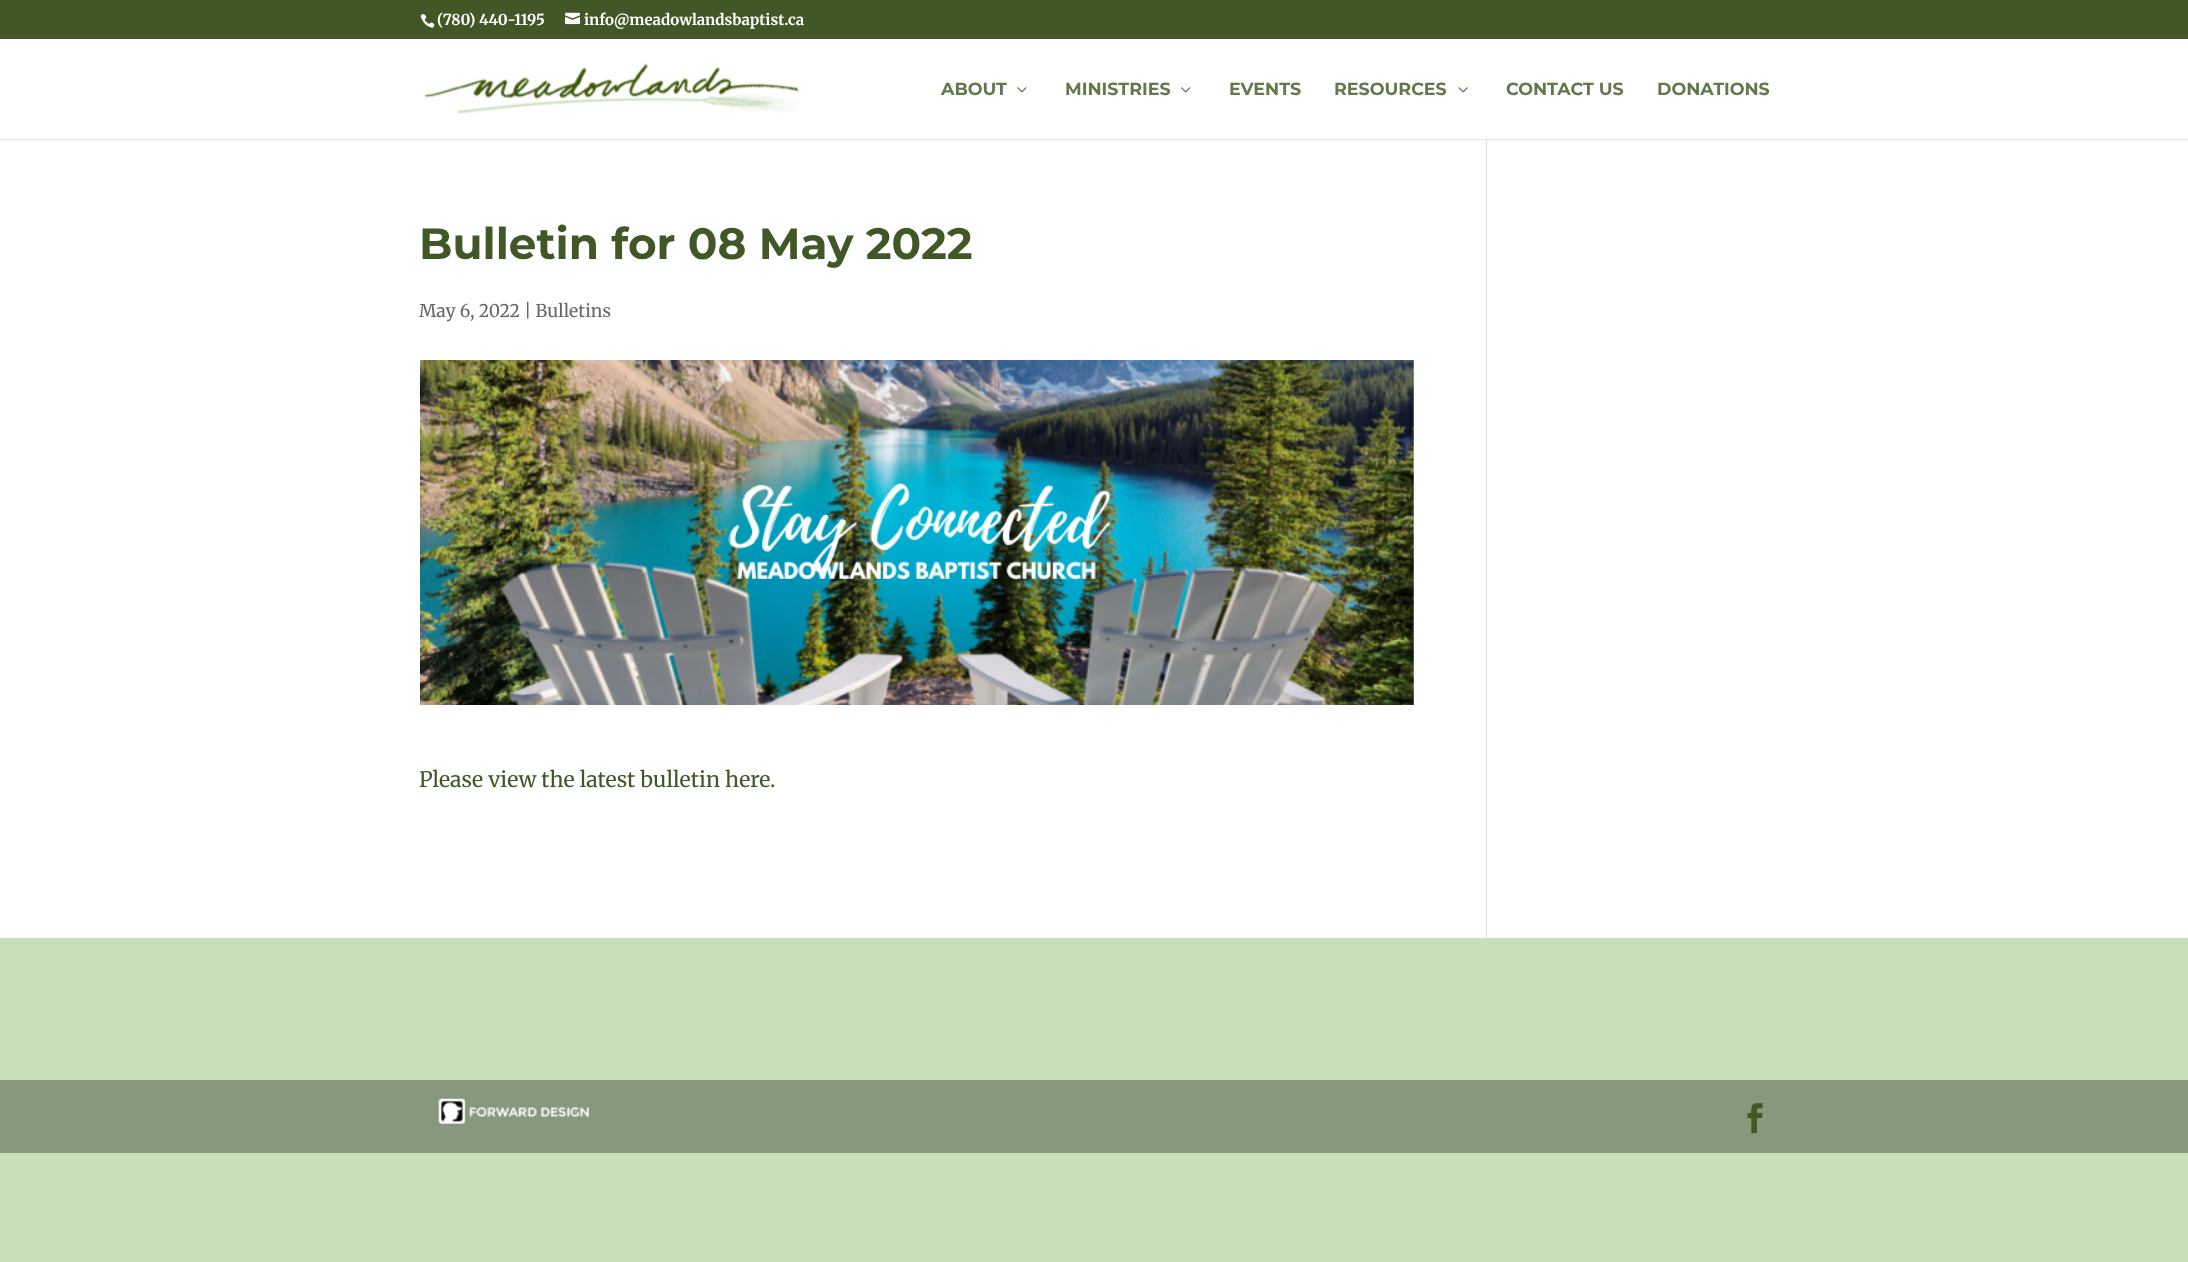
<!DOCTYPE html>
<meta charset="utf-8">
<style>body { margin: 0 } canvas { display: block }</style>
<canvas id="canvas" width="2188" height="1262"></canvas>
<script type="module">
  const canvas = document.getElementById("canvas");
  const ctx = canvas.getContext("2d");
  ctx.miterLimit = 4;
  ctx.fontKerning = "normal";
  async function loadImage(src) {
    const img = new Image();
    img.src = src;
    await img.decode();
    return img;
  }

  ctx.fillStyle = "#c8dfbb";
  ctx.fillRect(0, 0, 2188, 1262);
  ctx.fillStyle = "#415826";
  ctx.fillRect(0, 0, 2188, 39);
  ctx.drawImage(await loadImage("img1.png"), 420, 14, 15, 14);
  ctx.font = "bold 15px Merriweather";
  ctx.fillStyle = "#ffffff";
  ctx.fillText("(780) 440-1195", 437, 25);
  ctx.drawImage(await loadImage("img2.png"), 565, 12, 15, 13);
  ctx.fillText("info@meadowlandsbaptist.ca", 584, 25);
  ctx.fillRect(0, 39, 2188, 899);
  ctx.fillStyle = "#e2e2e2";
  ctx.fillRect(1486, 139, 1, 799);
  ctx.fillStyle = "rgba(0, 0, 0, 0.1)";
  ctx.beginPath();
  ctx.moveTo(0, 139);
  ctx.lineTo(0, 140);
  ctx.lineTo(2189, 140);
  ctx.lineTo(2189, 40);
  ctx.lineTo(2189, 139);
  ctx.closePath();
  ctx.fill();
  ctx.drawImage(await loadImage("img3.png"), 425, 63, 374, 51);
  ctx.font = "bold 17.5px Montserrat";
  ctx.fillStyle = "#64784c";
  ctx.fillText("ABOUT", 941, 95);
  ctx.drawImage(await loadImage("img4.png"), 1017, 87, 10, 6);
  ctx.fillText("MINISTRIES", 1065, 95);
  ctx.drawImage(await loadImage("img5.png"), 1181, 87, 10, 6);
  ctx.fillText("EVENTS", 1229, 95);
  ctx.fillText("RESOURCES", 1334, 95);
  ctx.drawImage(await loadImage("img6.png"), 1458, 87, 10, 6);
  ctx.fillText("CONTACT US", 1506, 95);
  ctx.fillText("DONATIONS", 1657, 95);
  ctx.font = "bold 43.75px Montserrat";
  ctx.fillStyle = "#415826";
  ctx.fillText("Bulletin for 08 May 2022", 419, 259);
  ctx.font = "17.5px Merriweather";
  ctx.fillStyle = "#666666";
  ctx.fillText("May 6, 2022 | Bulletins", 419, 317);
  ctx.drawImage(await loadImage("img7.png"), 420, 360, 994, 345);
  ctx.font = "21.25px Merriweather";
  ctx.fillStyle = "#415826";
  ctx.fillText("Please view the latest bulletin here.", 419, 787);
  ctx.fillStyle = "#88987f";
  ctx.fillRect(0, 1080, 2188, 73);
  ctx.drawImage(await loadImage("img8.png"), 438, 1098, 151, 26);
  ctx.drawImage(await loadImage("img9.png"), 1747, 1103, 16, 31);
</script>
